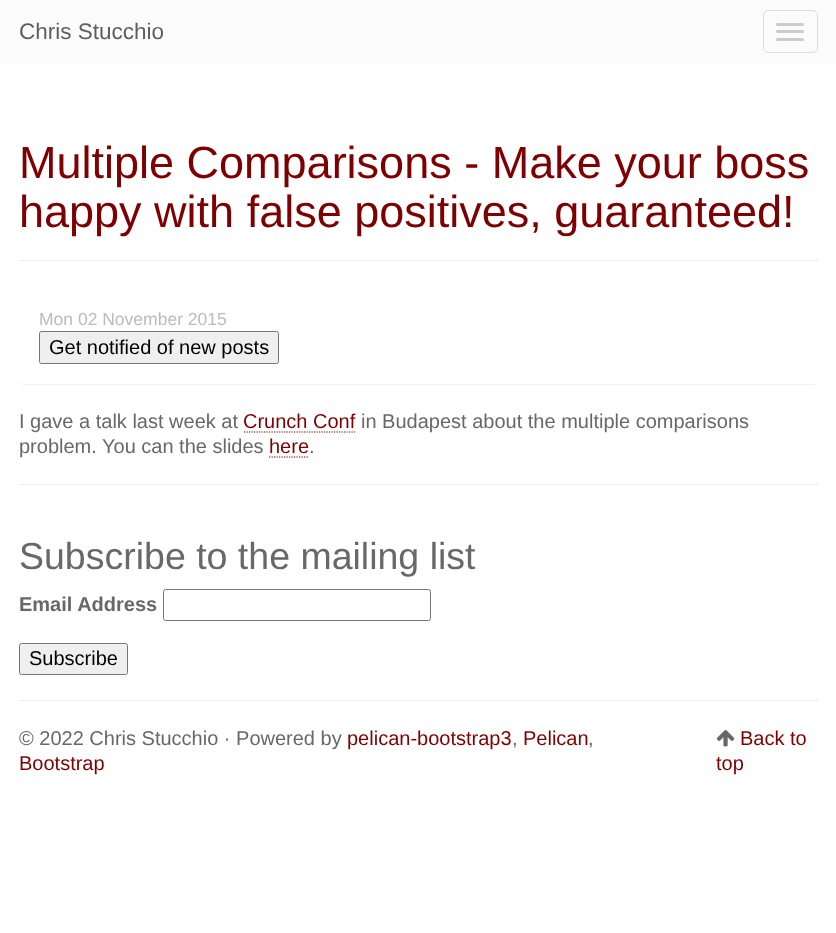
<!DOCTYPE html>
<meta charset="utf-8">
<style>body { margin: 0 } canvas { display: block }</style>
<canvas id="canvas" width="836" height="933"></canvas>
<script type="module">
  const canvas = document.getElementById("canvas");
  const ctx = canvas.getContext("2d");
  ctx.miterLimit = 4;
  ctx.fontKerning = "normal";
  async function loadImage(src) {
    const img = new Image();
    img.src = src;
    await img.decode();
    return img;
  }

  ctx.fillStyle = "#ffffff";
  ctx.fillRect(0, 0, 836, 933);
  ctx.fillStyle = "#fbfbfb";
  ctx.fillRect(0, 0, 836, 64);
  ctx.font = "22.5px Liberation Sans";
  ctx.fillStyle = "#5e5e5e";
  ctx.fillText("Chris Stucchio", 19, 39);
  ctx.beginPath();
  ctx.roundRect(763.5, 10.5, 54, 42, 4.5);
  ctx.strokeStyle = "#dddddd";
  ctx.stroke();
  ctx.fillStyle = "#cccccc";
  ctx.beginPath();
  ctx.roundRect(776, 23, 28, 3, 1.5);
  ctx.fill();
  ctx.beginPath();
  ctx.roundRect(776, 30, 28, 3, 1.5);
  ctx.fill();
  ctx.beginPath();
  ctx.roundRect(776, 38, 28, 3, 1.5);
  ctx.fill();
  ctx.fillStyle = "#eeeeee";
  ctx.fillRect(19, 260, 799, 1);
  ctx.font = "45px Liberation Sans";
  ctx.fillStyle = "#7e0000";
  ctx.fillText("Multiple Comparisons - Make your boss", 19, 178);
  ctx.fillText("happy with false positives, guaranteed!", 19, 227);
  ctx.fillStyle = "rgba(0, 0, 0, 0.05)";
  ctx.filter = "blur(0.5px)";
  ctx.beginPath();
  ctx.roundRect(19, 288, 799, 97, 5);
  ctx.fill();
  ctx.filter = "none";
  ctx.fillStyle = "#ffffff";
  ctx.beginPath();
  ctx.roundRect(19, 286, 799, 98, 5);
  ctx.fill();
  ctx.font = "17.5px Liberation Sans";
  ctx.fillStyle = "#bbbbbb";
  ctx.fillText("Mon 02 November 2015", 39, 325);
  ctx.fillStyle = "#efefef";
  ctx.beginPath();
  ctx.roundRect(39.5, 331.5, 239, 32, 2);
  ctx.fill();
  ctx.strokeStyle = "#767676";
  ctx.stroke();
  ctx.font = "20px Liberation Sans";
  ctx.fillStyle = "#000000";
  ctx.fillText("Get notified of new posts", 49, 354);
  ctx.fillStyle = "#686868";
  ctx.fillText("I gave a talk last week at", 19, 428);
  ctx.fillStyle = "#7e0000";
  ctx.fillText("Crunch Conf", 243, 428);
  ctx.beginPath();
  ctx.moveTo(244, 432);
  ctx.lineTo(355, 432);
  ctx.strokeStyle = "#7e0000";
  ctx.lineWidth = 1.2;
  ctx.setLineDash([1.25, 1.25]);
  ctx.stroke();
  ctx.fillStyle = "#686868";
  ctx.fillText("in Budapest about the multiple comparisons", 361, 428);
  ctx.fillText("problem. You can the slides", 19, 453);
  ctx.fillStyle = "#7e0000";
  ctx.fillText("here", 269, 453);
  ctx.beginPath();
  ctx.moveTo(269, 457);
  ctx.lineTo(309, 457);
  ctx.stroke();
  ctx.fillStyle = "#686868";
  ctx.fillText(".", 309, 453);
  ctx.fillStyle = "#eeeeee";
  ctx.fillRect(19, 484, 799, 1);
  ctx.font = "37.5px Liberation Sans";
  ctx.fillStyle = "#686868";
  ctx.fillText("Subscribe to the mailing list", 19, 569);
  ctx.font = "bold 20px Liberation Sans";
  ctx.fillText("Email Address", 19, 611);
  ctx.beginPath();
  ctx.roundRect(163.5, 589.5, 267, 31, 2);
  ctx.strokeStyle = "#767676";
  ctx.lineWidth = 1;
  ctx.setLineDash([]);
  ctx.stroke();
  ctx.fillStyle = "#efefef";
  ctx.beginPath();
  ctx.roundRect(19.5, 643.5, 108, 31, 2);
  ctx.fill();
  ctx.stroke();
  ctx.font = "20px Liberation Sans";
  ctx.fillStyle = "#000000";
  ctx.fillText("Subscribe", 29, 665);
  ctx.fillStyle = "#eeeeee";
  ctx.fillRect(19, 700, 799, 1);
  ctx.fillStyle = "#686868";
  ctx.fillText("© 2022 Chris Stucchio · Powered by", 19, 745);
  ctx.fillStyle = "#7e0000";
  ctx.fillText("pelican-bootstrap3", 347, 745);
  ctx.fillStyle = "#686868";
  ctx.fillText(",", 512, 745);
  ctx.fillStyle = "#7e0000";
  ctx.fillText("Pelican", 523, 745);
  ctx.fillStyle = "#686868";
  ctx.fillText(",", 588, 745);
  ctx.fillStyle = "#7e0000";
  ctx.fillText("Bootstrap", 19, 770);
  ctx.drawImage(await loadImage("img1.png"), 716, 730, 19, 17);
  ctx.fillText("Back to", 740, 745);
  ctx.fillText("top", 716, 770);
</script>
